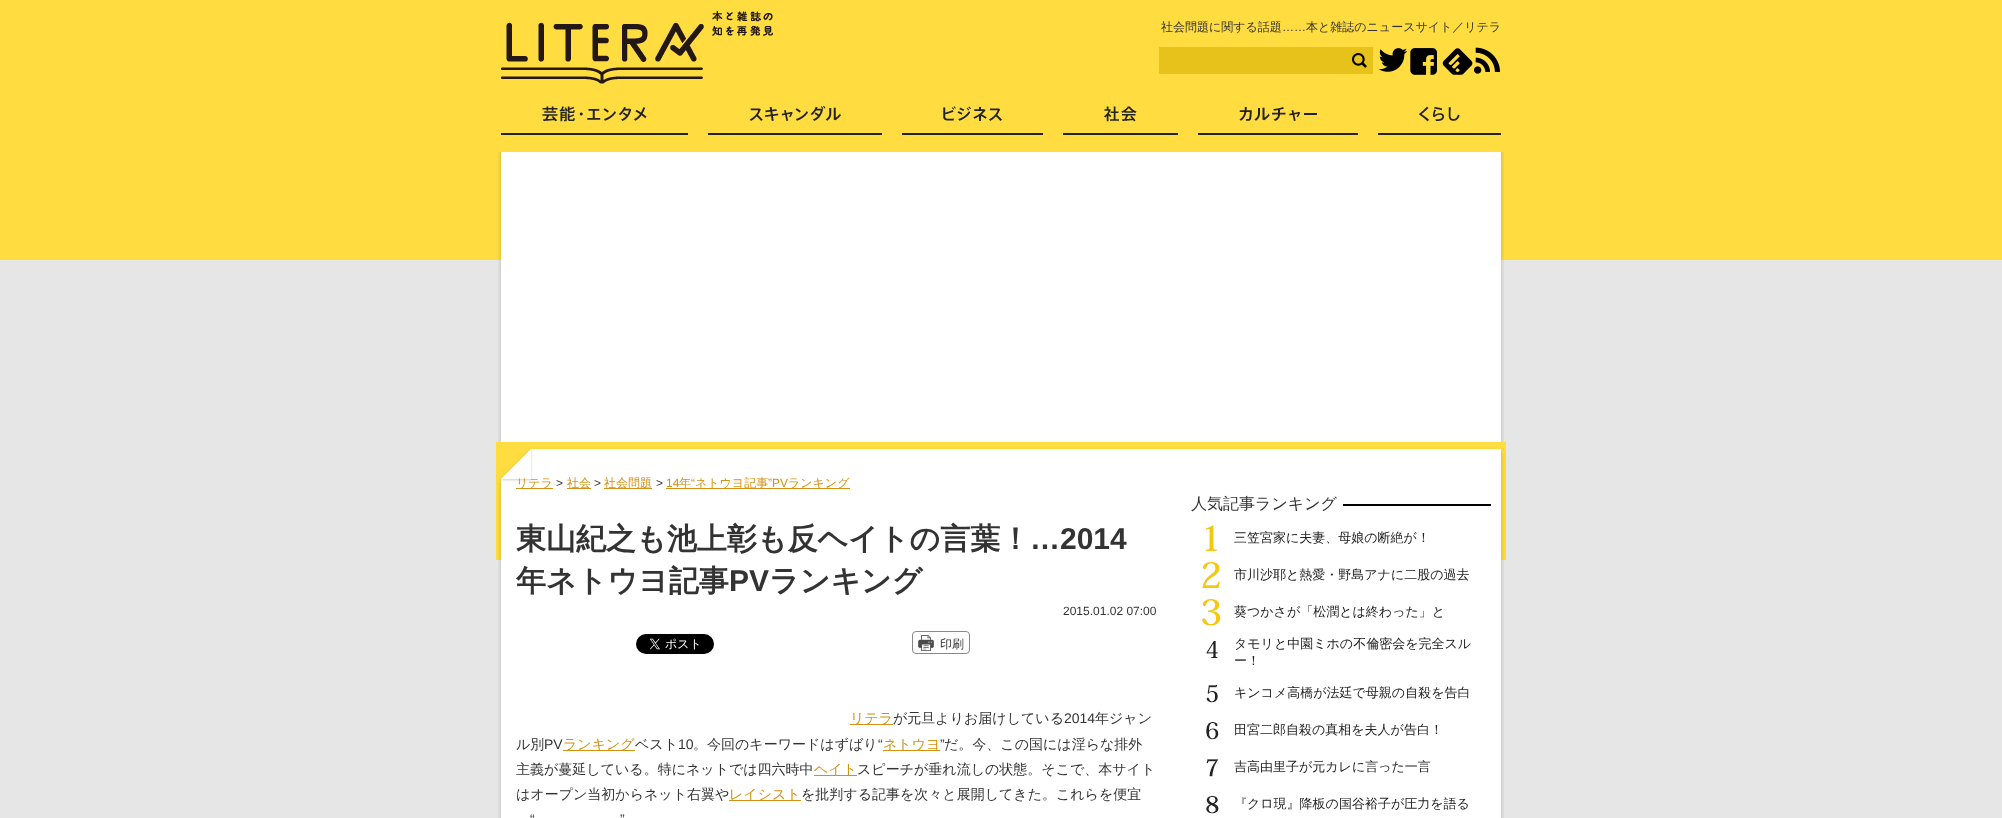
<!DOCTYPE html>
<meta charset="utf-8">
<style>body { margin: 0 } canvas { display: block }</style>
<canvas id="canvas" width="2002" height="818"></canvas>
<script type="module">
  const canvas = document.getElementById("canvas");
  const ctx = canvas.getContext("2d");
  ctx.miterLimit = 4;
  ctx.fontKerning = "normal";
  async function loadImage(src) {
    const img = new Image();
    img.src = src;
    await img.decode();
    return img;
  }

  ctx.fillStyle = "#e6e6e6";
  ctx.fillRect(0, 0, 2002, 818);
  ctx.fillStyle = "#ffdc3f";
  ctx.fillRect(0, 0, 2002, 260);
  ctx.drawImage(await loadImage("img1.png"), 501, 11, 272, 73);
  ctx.font = "500 12px WenQuanYi Zen Hei";
  ctx.fillStyle = "#333333";
  ctx.fillText("社会問題に関する話題", 1161, 31);
  ctx.font = "12px Liberation Sans";
  ctx.fillText("……", 1282, 31);
  ctx.font = "500 12px WenQuanYi Zen Hei";
  ctx.fillText("本と雑誌のニュースサイト／リテラ", 1306, 31);
  ctx.fillStyle = "#e7c21b";
  ctx.fillRect(1159, 47, 214, 27);
  ctx.drawImage(await loadImage("img2.png"), 1352, 53, 15, 15);
  ctx.drawImage(await loadImage("img3.png"), 1378, 48, 29, 24);
  ctx.drawImage(await loadImage("img4.png"), 1410, 48, 27, 27);
  ctx.drawImage(await loadImage("img5.png"), 1442, 48, 31, 27);
  ctx.drawImage(await loadImage("img6.png"), 1474, 47, 26, 27);
  ctx.drawImage(await loadImage("img7.png"), 498, 152, 1006, 666);
  ctx.drawImage(await loadImage("img8.png"), 496, 442, 1010, 118);
  ctx.fillStyle = "#d59114";
  ctx.fillRect(516, 488, 37, 1);
  ctx.fillText("リテラ", 516, 487);
  ctx.font = "12px Liberation Sans";
  ctx.fillStyle = "#333333";
  ctx.fillText(">", 556, 487);
  ctx.fillStyle = "#d59114";
  ctx.fillRect(567, 488, 24, 1);
  ctx.font = "500 12px WenQuanYi Zen Hei";
  ctx.fillText("社会", 567, 487);
  ctx.font = "12px Liberation Sans";
  ctx.fillStyle = "#333333";
  ctx.fillText(">", 594, 487);
  ctx.fillStyle = "#d59114";
  ctx.fillRect(604, 488, 48, 1);
  ctx.font = "500 12px WenQuanYi Zen Hei";
  ctx.fillText("社会問題", 604, 487);
  ctx.font = "12px Liberation Sans";
  ctx.fillStyle = "#333333";
  ctx.fillText(">", 656, 487);
  ctx.fillStyle = "#d59114";
  ctx.fillText("14", 666, 487);
  ctx.fillRect(666, 488, 184, 1);
  ctx.font = "500 12px WenQuanYi Zen Hei";
  ctx.fillText("年", 679, 487);
  ctx.font = "12px Liberation Sans";
  ctx.fillText("“", 691, 487);
  ctx.font = "500 12px WenQuanYi Zen Hei";
  ctx.fillText("ネトウヨ記事", 695, 487);
  ctx.font = "12px Liberation Sans";
  ctx.fillText("”PV", 768, 487);
  ctx.font = "500 12px WenQuanYi Zen Hei";
  ctx.fillText("ランキング", 788, 487);
  ctx.font = "bold 30px WenQuanYi Zen Hei";
  ctx.fillStyle = "#333333";
  ctx.fillText("東山紀之も池上彰も反ヘイトの言葉！", 516, 549);
  ctx.font = "bold 30px Liberation Sans";
  ctx.fillText("…2014", 1030, 549);
  ctx.font = "bold 30px WenQuanYi Zen Hei";
  ctx.fillText("年ネトウヨ記事", 516, 591);
  ctx.font = "bold 30px Liberation Sans";
  ctx.fillText("PV", 729, 591);
  ctx.font = "bold 30px WenQuanYi Zen Hei";
  ctx.fillText("ランキング", 769, 591);
  ctx.font = "12px Liberation Sans";
  ctx.fillText("2015.01.02 07:00", 1063, 615);
  ctx.drawImage(await loadImage("img9.png"), 636, 634, 78, 20);
  ctx.beginPath();
  ctx.roundRect(912.5, 631.5, 57, 22, 3.5);
  ctx.strokeStyle = "#888888";
  ctx.stroke();
  ctx.drawImage(await loadImage("img10.png"), 918, 635, 16, 16);
  ctx.font = "500 12px WenQuanYi Zen Hei";
  ctx.fillText("印刷", 940, 648);
  ctx.fillStyle = "#d59114";
  ctx.fillRect(850, 724, 43, 1);
  ctx.font = "500 14px WenQuanYi Zen Hei";
  ctx.fillText("リテラ", 850, 723);
  ctx.fillStyle = "#333333";
  ctx.fillText("が元旦よりお届けしている", 893, 723);
  ctx.font = "14px Liberation Sans";
  ctx.fillText("2014", 1064, 723);
  ctx.font = "500 14px WenQuanYi Zen Hei";
  ctx.fillText("年ジャン", 1095, 723);
  ctx.fillText("ル別", 516, 749);
  ctx.font = "14px Liberation Sans";
  ctx.fillText("PV", 544, 749);
  ctx.fillStyle = "#d59114";
  ctx.fillRect(563, 750, 72, 1);
  ctx.font = "500 14px WenQuanYi Zen Hei";
  ctx.fillText("ランキング", 563, 749);
  ctx.fillStyle = "#333333";
  ctx.fillText("ベスト", 635, 749);
  ctx.font = "14px Liberation Sans";
  ctx.fillText("10", 678, 749);
  ctx.font = "500 14px WenQuanYi Zen Hei";
  ctx.fillText("。今回のキーワードはずばり", 693, 749);
  ctx.font = "14px Liberation Sans";
  ctx.fillText("“", 878, 749);
  ctx.fillStyle = "#d59114";
  ctx.fillRect(883, 750, 57, 1);
  ctx.font = "500 14px WenQuanYi Zen Hei";
  ctx.fillText("ネトウヨ", 883, 749);
  ctx.font = "14px Liberation Sans";
  ctx.fillStyle = "#333333";
  ctx.fillText("”", 940, 749);
  ctx.font = "500 14px WenQuanYi Zen Hei";
  ctx.fillText("だ。今、この国には淫らな排外", 944, 749);
  ctx.fillText("主義が蔓延している。特にネットでは四六時中", 516, 774);
  ctx.fillStyle = "#d59114";
  ctx.fillRect(814, 775, 43, 1);
  ctx.fillText("ヘイト", 814, 774);
  ctx.fillStyle = "#333333";
  ctx.fillText("スピーチが垂れ流しの状態。そこで、本サイト", 857, 774);
  ctx.fillText("はオープン当初からネット右翼や", 516, 799);
  ctx.fillStyle = "#d59114";
  ctx.fillRect(729, 800, 72, 1);
  ctx.fillText("レイシスト", 729, 799);
  ctx.fillStyle = "#333333";
  ctx.fillText("を批判する記事を次々と展開してきた。これらを便宜", 801, 799);
  ctx.font = "14px Liberation Sans";
  ctx.fillText("“", 530, 824);
  ctx.fillText("”", 620, 824);
  ctx.font = "500 16px WenQuanYi Zen Hei";
  ctx.fillText("人気記事ランキング", 1191, 509);
  ctx.fillStyle = "#000000";
  ctx.fillRect(1343, 504, 148, 2);
  ctx.drawImage(await loadImage("img11.png"), 1206, 525, 11, 26);
  ctx.font = "500 13px WenQuanYi Zen Hei";
  ctx.fillStyle = "#232323";
  ctx.fillText("三笠宮家に夫妻、母娘の断絶が！", 1234, 542);
  ctx.drawImage(await loadImage("img12.png"), 1202, 562, 18, 26);
  ctx.fillText("市川沙耶と熱愛・野島アナに二股の過去", 1234, 579);
  ctx.drawImage(await loadImage("img13.png"), 1202, 599, 19, 27);
  ctx.fillText("葵つかさが「松潤とは終わった」と", 1234, 616);
  ctx.drawImage(await loadImage("img14.png"), 1206, 641, 12, 17);
  ctx.fillText("タモリと中園ミホの不倫密会を完全スル", 1234, 648);
  ctx.fillText("ー！", 1234, 665);
  ctx.drawImage(await loadImage("img15.png"), 1206, 684, 12, 19);
  ctx.fillText("キンコメ高橋が法廷で母親の自殺を告白", 1234, 697);
  ctx.drawImage(await loadImage("img16.png"), 1206, 722, 13, 18);
  ctx.fillText("田宮二郎自殺の真相を夫人が告白！", 1234, 734);
  ctx.drawImage(await loadImage("img17.png"), 1206, 759, 13, 18);
  ctx.fillText("吉高由里子が元カレに言った一言", 1234, 771);
  ctx.drawImage(await loadImage("img18.png"), 1206, 796, 13, 18);
  ctx.fillText("『クロ現』降板の国谷裕子が圧力を語る", 1234, 808);
  ctx.drawImage(await loadImage("img19.png"), 501, 106, 187, 29);
  ctx.drawImage(await loadImage("img20.png"), 708, 105, 174, 30);
  ctx.drawImage(await loadImage("img21.png"), 902, 106, 141, 29);
  ctx.drawImage(await loadImage("img22.png"), 1063, 106, 115, 29);
  ctx.drawImage(await loadImage("img23.png"), 1198, 107, 160, 28);
  ctx.drawImage(await loadImage("img24.png"), 1378, 106, 123, 29);
</script>
